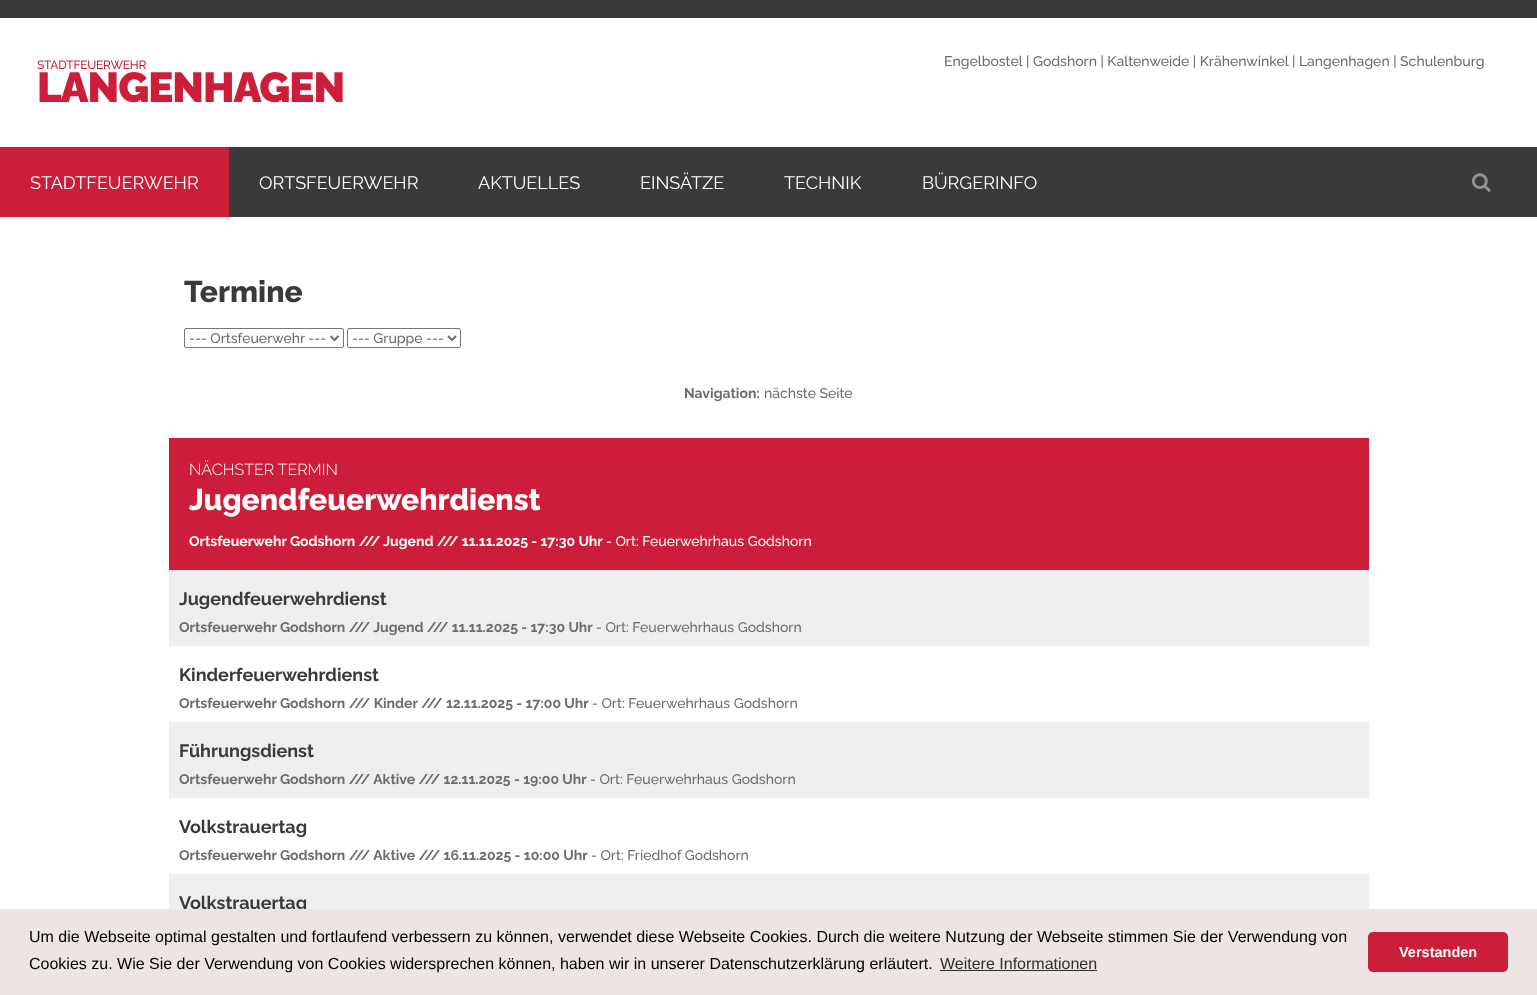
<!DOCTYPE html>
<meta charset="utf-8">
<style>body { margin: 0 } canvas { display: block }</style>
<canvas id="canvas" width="1537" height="995"></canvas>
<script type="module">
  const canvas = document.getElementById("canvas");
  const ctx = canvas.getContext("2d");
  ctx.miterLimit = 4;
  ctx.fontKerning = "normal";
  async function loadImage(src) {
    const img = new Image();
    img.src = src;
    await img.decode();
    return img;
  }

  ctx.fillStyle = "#3a3a3a";
  ctx.fillRect(0, 0, 1537, 995);
  ctx.fillStyle = "#ffffff";
  ctx.fillRect(0, 18, 1537, 129);
  ctx.letterSpacing = "-0.25px";
  ctx.font = "500 12px Raleway";
  ctx.fillStyle = "#cc1e3a";
  ctx.fillText("STADTFEUERWEHR", 37, 69);
  ctx.letterSpacing = "-1px";
  ctx.font = "900 42px Raleway";
  ctx.fillText("LANGENHAGEN", 37, 102);
  ctx.letterSpacing = "0px";
  ctx.font = "500 14px Raleway";
  ctx.fillStyle = "#6c6c6c";
  ctx.fillText("Engelbostel", 944, 66);
  ctx.fillText("| Godshorn | Kaltenweide | Krähenwinkel", 1026, 66);
  ctx.fillText("| Langenhagen | Schulenburg", 1292, 66);
  ctx.fillStyle = "#cc1e3a";
  ctx.fillRect(0, 147, 229, 70);
  ctx.font = "18px Raleway";
  ctx.fillStyle = "#ffffff";
  ctx.fillText("STADTFEUERWEHR", 30, 189);
  ctx.fillText("ORTSFEUERWEHR", 259, 189);
  ctx.fillText("AKTUELLES", 478, 189);
  ctx.fillText("EINSÄTZE", 640, 189);
  ctx.fillText("TECHNIK", 784, 189);
  ctx.fillText("BÜRGERINFO", 922, 189);
  ctx.drawImage(await loadImage("img1.png"), 1472, 173, 19, 19);
  ctx.fillRect(0, 217, 1537, 692);
  ctx.font = "800 30px Raleway";
  ctx.fillStyle = "#3a3a3a";
  ctx.fillText("Termine", 184, 302);
  ctx.beginPath();
  ctx.roundRect(184.5, 328.5, 159, 19, 1.5);
  ctx.strokeStyle = "#767676";
  ctx.stroke();
  ctx.beginPath();
  ctx.moveTo(330.5, 336);
  ctx.lineTo(334.5, 340);
  ctx.lineTo(338.5, 336);
  ctx.strokeStyle = "#6c6c6c";
  ctx.lineWidth = 2;
  ctx.stroke();
  ctx.font = "500 14px Raleway";
  ctx.fillStyle = "#6c6c6c";
  ctx.fillText("--- Ortsfeuerwehr ---", 189, 343);
  ctx.beginPath();
  ctx.roundRect(347.5, 328.5, 113, 19, 1.5);
  ctx.strokeStyle = "#767676";
  ctx.lineWidth = 1;
  ctx.stroke();
  ctx.beginPath();
  ctx.moveTo(448, 336);
  ctx.lineTo(452, 340);
  ctx.lineTo(456, 336);
  ctx.strokeStyle = "#6c6c6c";
  ctx.lineWidth = 2;
  ctx.stroke();
  ctx.fillText("--- Gruppe ---", 352, 343);
  ctx.font = "bold 14px Raleway";
  ctx.fillText("Navigation:", 684, 398);
  ctx.font = "500 14px Raleway";
  ctx.fillText("nächste Seite", 764, 398);
  ctx.fillStyle = "#cc1e3a";
  ctx.fillRect(169, 438, 1200, 132);
  ctx.font = "300 16px Raleway";
  ctx.fillStyle = "#ffffff";
  ctx.fillText("NÄCHSTER TERMIN", 189, 475);
  ctx.font = "800 30px Raleway";
  ctx.fillText("Jugendfeuerwehrdienst", 189, 510);
  ctx.font = "bold 14px Raleway";
  ctx.fillText("Ortsfeuerwehr Godshorn /// Jugend /// 11.11.2025 - 17:30 Uhr", 189, 546);
  ctx.font = "500 14px Raleway";
  ctx.fillText("- Ort: Feuerwehrhaus Godshorn", 606, 546);
  ctx.fillStyle = "#eeeeee";
  ctx.fillRect(169, 570, 1200, 76);
  ctx.font = "bold 18px Raleway";
  ctx.fillStyle = "#3a3a3a";
  ctx.fillText("Jugendfeuerwehrdienst", 179, 605);
  ctx.font = "bold 14px Raleway";
  ctx.fillStyle = "#6c6c6c";
  ctx.fillText("Ortsfeuerwehr Godshorn /// Jugend /// 11.11.2025 - 17:30 Uhr", 179, 632);
  ctx.font = "500 14px Raleway";
  ctx.fillText("- Ort: Feuerwehrhaus Godshorn", 596, 632);
  ctx.font = "bold 18px Raleway";
  ctx.fillStyle = "#3a3a3a";
  ctx.fillText("Kinderfeuerwehrdienst", 179, 681);
  ctx.font = "bold 14px Raleway";
  ctx.fillStyle = "#6c6c6c";
  ctx.fillText("Ortsfeuerwehr Godshorn /// Kinder /// 12.11.2025 - 17:00 Uhr", 179, 708);
  ctx.font = "500 14px Raleway";
  ctx.fillText("- Ort: Feuerwehrhaus Godshorn", 592, 708);
  ctx.fillStyle = "#eeeeee";
  ctx.fillRect(169, 722, 1200, 76);
  ctx.font = "bold 18px Raleway";
  ctx.fillStyle = "#3a3a3a";
  ctx.fillText("Führungsdienst", 179, 757);
  ctx.font = "bold 14px Raleway";
  ctx.fillStyle = "#6c6c6c";
  ctx.fillText("Ortsfeuerwehr Godshorn /// Aktive /// 12.11.2025 - 19:00 Uhr", 179, 784);
  ctx.font = "500 14px Raleway";
  ctx.fillText("- Ort: Feuerwehrhaus Godshorn", 590, 784);
  ctx.font = "bold 18px Raleway";
  ctx.fillStyle = "#3a3a3a";
  ctx.fillText("Volkstrauertag", 179, 833);
  ctx.font = "bold 14px Raleway";
  ctx.fillStyle = "#6c6c6c";
  ctx.fillText("Ortsfeuerwehr Godshorn /// Aktive /// 16.11.2025 - 10:00 Uhr", 179, 860);
  ctx.font = "500 14px Raleway";
  ctx.fillText("- Ort: Friedhof Godshorn", 591, 860);
  ctx.fillStyle = "#eeeeee";
  ctx.fillRect(169, 874, 1200, 35);
  ctx.font = "bold 18px Raleway";
  ctx.fillStyle = "#3a3a3a";
  ctx.fillText("Volkstrauertag", 179, 909);
  ctx.fillStyle = "#ede4e4";
  ctx.fillRect(0, 909, 1537, 86);
  ctx.font = "16px Liberation Sans";
  ctx.fillStyle = "#000000";
  ctx.fillText("Um die Webseite optimal gestalten und fortlaufend verbessern zu können, verwendet diese Webseite Cookies. Durch die weitere Nutzung der Webseite stimmen Sie der Verwendung von", 29, 942);
  ctx.fillText("Cookies zu. Wie Sie der Verwendung von Cookies widersprechen können, haben wir in unserer Datenschutzerklärung erläutert.", 29, 969);
  ctx.fillStyle = "#2f2e2e";
  ctx.fillText("Weitere Informationen", 940, 969);
  ctx.fillRect(940, 970, 157, 1);
  ctx.fillStyle = "#cc1e3a";
  ctx.beginPath();
  ctx.roundRect(1368, 932, 140, 40, 5);
  ctx.fill();
  ctx.font = "bold 14.5px Liberation Sans";
  ctx.fillStyle = "#ffffff";
  ctx.fillText("Verstanden", 1399, 957);
</script>
